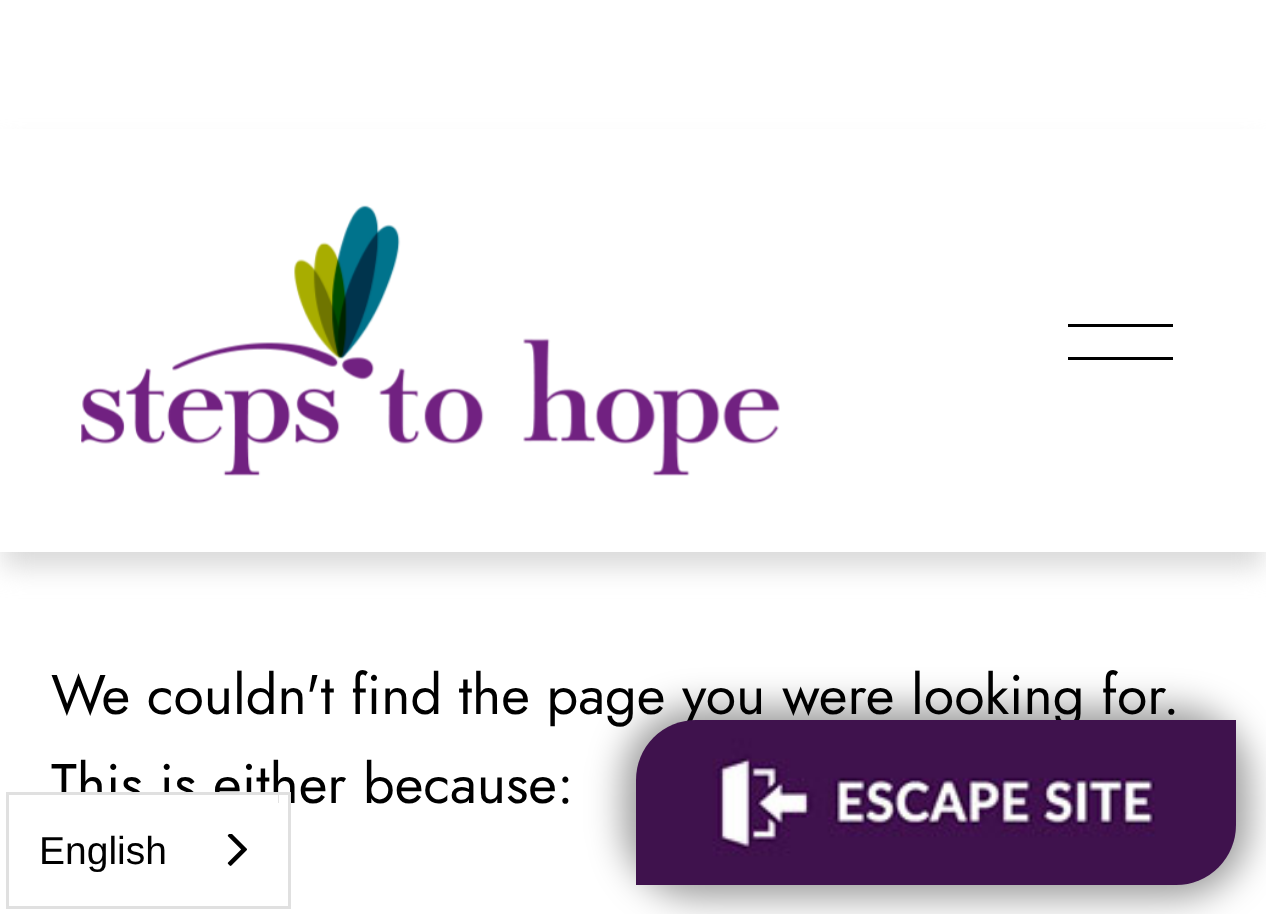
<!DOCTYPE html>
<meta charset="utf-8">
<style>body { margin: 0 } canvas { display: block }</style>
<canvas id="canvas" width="1266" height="914"></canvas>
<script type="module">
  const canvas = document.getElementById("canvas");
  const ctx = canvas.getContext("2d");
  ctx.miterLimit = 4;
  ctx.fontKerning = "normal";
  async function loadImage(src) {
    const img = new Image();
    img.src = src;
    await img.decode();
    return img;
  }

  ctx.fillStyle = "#ffffff";
  ctx.fillRect(0, 0, 1266, 914);
  ctx.fillStyle = "rgba(0, 0, 0, 0.4)";
  ctx.filter = "blur(18px)";
  ctx.beginPath();
  ctx.roundRect(624, 708, 624, 189, 72);
  ctx.fill();
  ctx.filter = "none";
  ctx.font = "55.6px Jost";
  ctx.fillStyle = "#000000";
  ctx.fillText("We couldn't find the page you were looking for.", 51, 714);
  ctx.drawImage(await loadImage("img1.png"), 636, 720, 600, 165);
  ctx.save();
  ctx.beginPath();
  ctx.moveTo(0, 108);
  ctx.lineTo(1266, 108);
  ctx.lineTo(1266, 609);
  ctx.lineTo(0, 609);
  ctx.closePath();
  ctx.moveTo(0, 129);
  ctx.lineTo(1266, 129);
  ctx.lineTo(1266, 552);
  ctx.lineTo(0, 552);
  ctx.closePath();
  ctx.clip("evenodd");
  ctx.fillStyle = "#d9d9d9";
  ctx.filter = "blur(13.5px)";
  ctx.beginPath();
  ctx.rect(3, 150, 1260, 417);
  ctx.fill();
  ctx.filter = "none";
  ctx.restore();
  ctx.drawImage(await loadImage("img2.png"), 81, 205, 699, 271);
  ctx.fillRect(1068, 324, 105, 3);
  ctx.fillRect(1068, 357, 105, 3);
  ctx.fillText("This is either because:", 51, 803);
  ctx.fillStyle = "#ffffff";
  ctx.fillRect(61, 795, 217, 9);
  ctx.strokeStyle = "#e0e0e0";
  ctx.lineWidth = 3;
  ctx.strokeRect(7.5, 793.5, 282, 114);
  ctx.font = "39px Liberation Sans";
  ctx.fillStyle = "#000000";
  ctx.fillText("English", 39, 864);
  ctx.drawImage(await loadImage("img3.png"), 227, 834, 20, 32);
</script>
